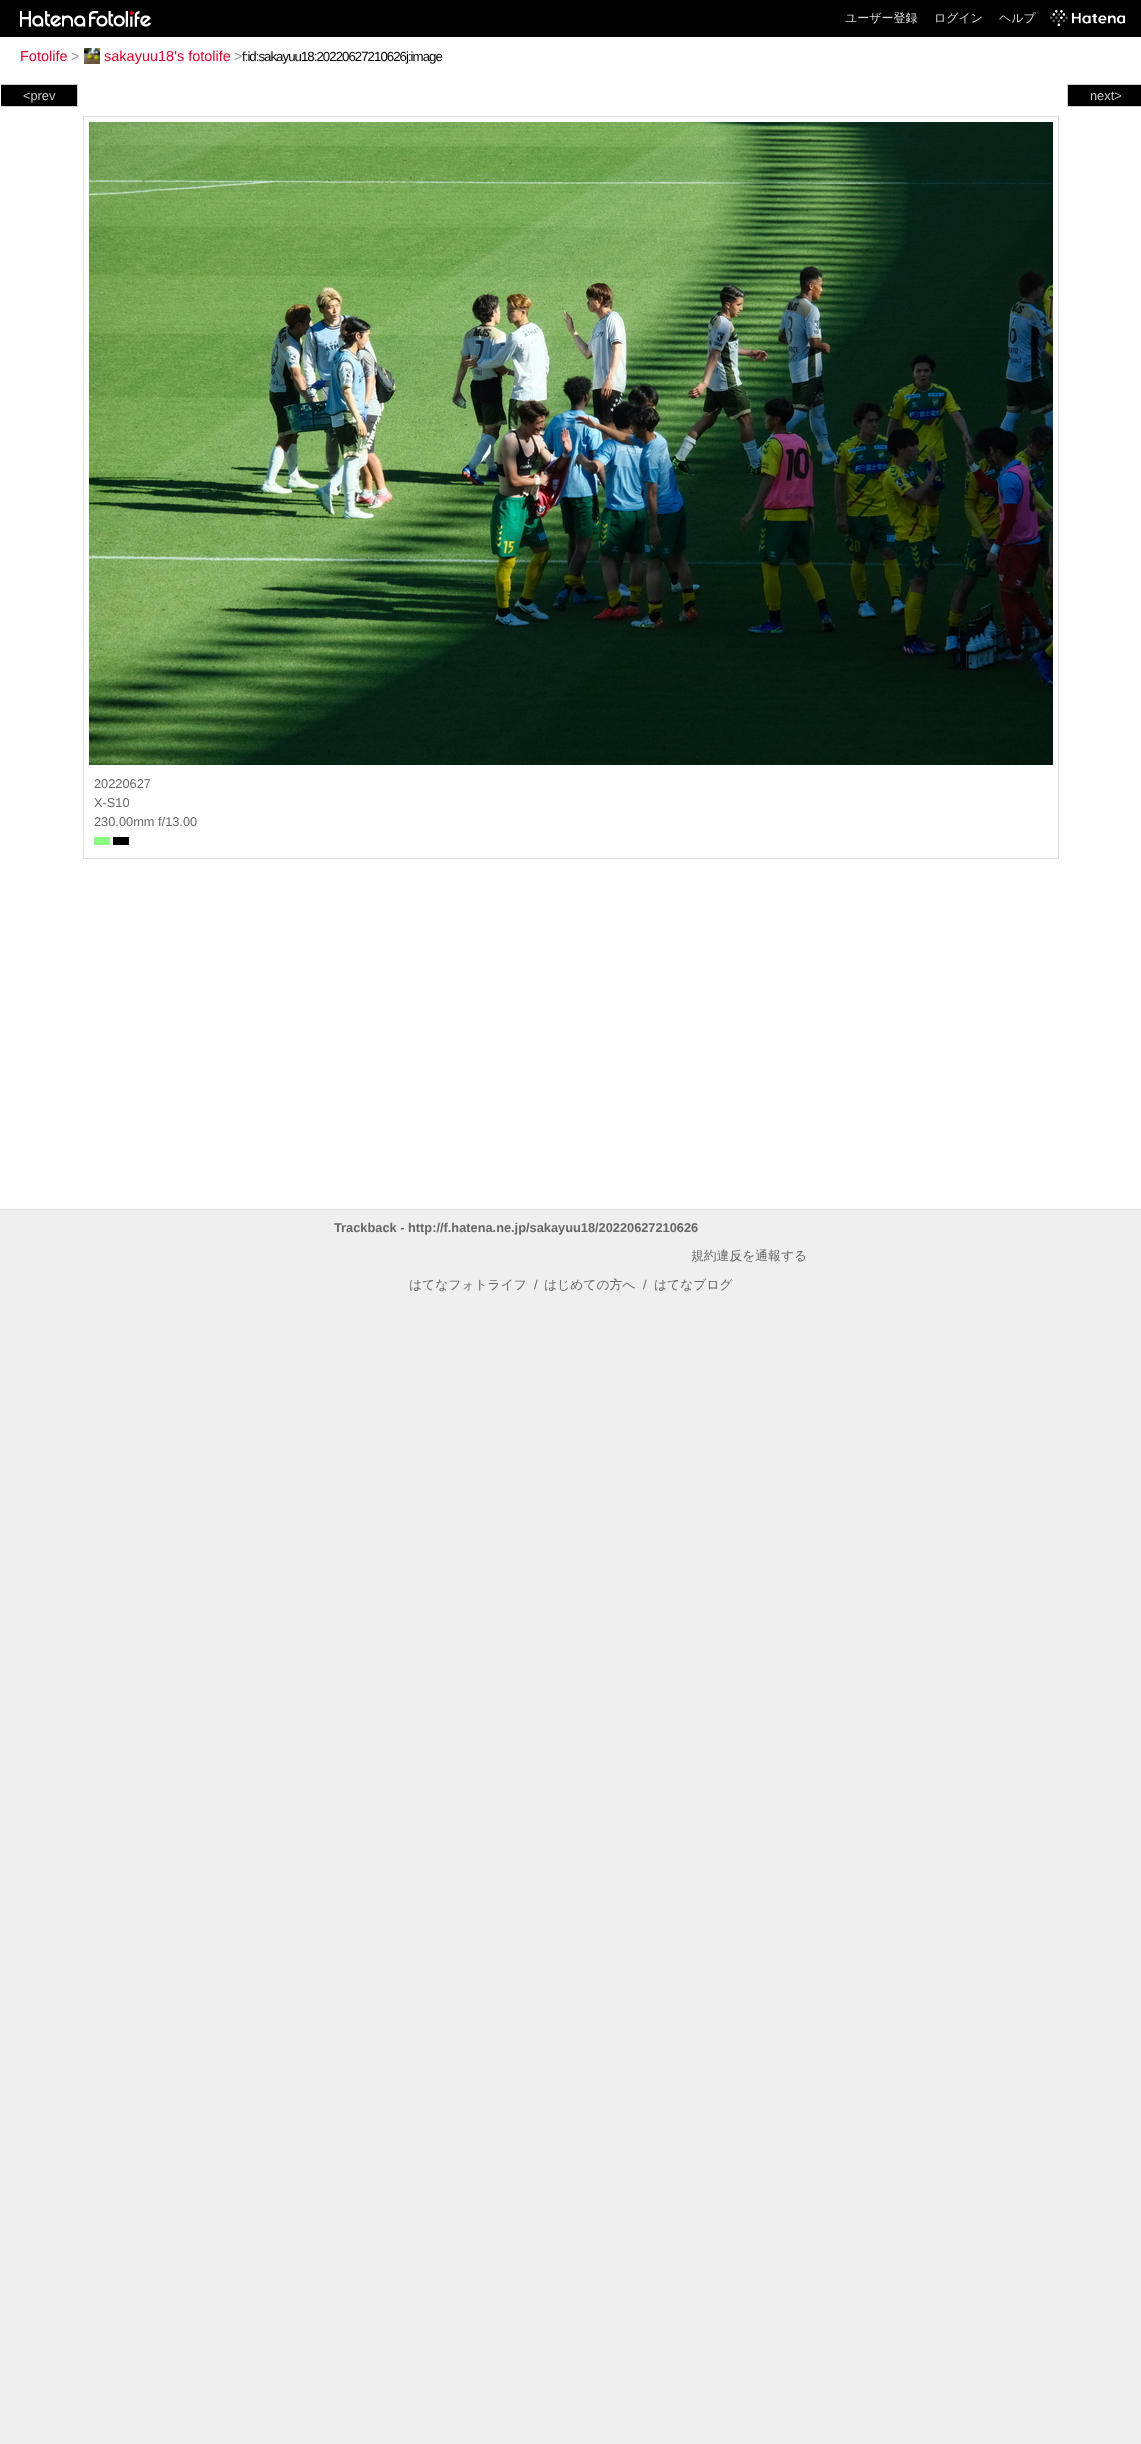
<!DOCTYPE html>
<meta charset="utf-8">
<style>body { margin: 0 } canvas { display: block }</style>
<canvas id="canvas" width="1141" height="2444"></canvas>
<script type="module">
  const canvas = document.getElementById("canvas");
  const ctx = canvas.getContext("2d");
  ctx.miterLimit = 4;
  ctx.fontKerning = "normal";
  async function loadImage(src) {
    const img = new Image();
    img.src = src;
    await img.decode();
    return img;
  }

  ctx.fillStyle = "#efefef";
  ctx.fillRect(0, 0, 1141, 2444);
  ctx.fillStyle = "#000000";
  ctx.fillRect(0, 0, 1141, 37);
  ctx.drawImage(await loadImage("img1.png"), 20, 11, 66, 16);
  ctx.drawImage(await loadImage("img2.png"), 89, 11, 62, 16);
  ctx.font = "500 12px WenQuanYi Zen Hei";
  ctx.fillStyle = "#dddddd";
  ctx.fillText("ユーザー登録", 845, 22);
  ctx.fillText("ログイン", 934, 22);
  ctx.fillText("ヘルプ", 999, 22);
  ctx.drawImage(await loadImage("img3.png"), 1050, 10, 75, 16);
  ctx.fillStyle = "#ffffff";
  ctx.fillRect(0, 37, 1141, 1172);
  ctx.font = "14.5px Liberation Sans";
  ctx.fillStyle = "#de002f";
  ctx.fillText("Fotolife", 20, 61);
  ctx.fillStyle = "#999999";
  ctx.fillText(">", 71, 61);
  ctx.drawImage(await loadImage("img4.png"), 84, 48, 16, 16);
  ctx.fillStyle = "#de002f";
  ctx.fillText("sakayuu18's fotolife", 104, 61);
  ctx.fillStyle = "#999999";
  ctx.fillText(">", 234, 61);
  ctx.letterSpacing = "-1px";
  ctx.font = "13.3px Liberation Sans";
  ctx.fillStyle = "#000000";
  ctx.fillText("f:id:sakayuu18:20220627210626j:image", 242, 61);
  ctx.fillStyle = "#dedede";
  ctx.fillRect(0, 1209, 1141, 1);
  ctx.fillStyle = "#000000";
  ctx.fillRect(1, 85, 76, 21);
  ctx.fillStyle = "#cccccc";
  ctx.fillRect(1, 84, 77, 1);
  ctx.fillRect(77, 84, 1, 23);
  ctx.fillRect(1, 106, 77, 1);
  ctx.letterSpacing = "0px";
  ctx.font = "12.8px Liberation Sans";
  ctx.fillText("<prev", 23, 100);
  ctx.fillStyle = "#000000";
  ctx.fillRect(1068, 85, 73, 21);
  ctx.fillStyle = "#cccccc";
  ctx.fillRect(1067, 84, 74, 1);
  ctx.fillRect(1067, 106, 74, 1);
  ctx.fillRect(1067, 84, 1, 23);
  ctx.fillText("next>", 1090, 100);
  ctx.strokeStyle = "#dedede";
  ctx.strokeRect(83.5, 116.5, 975, 742);
  ctx.drawImage(await loadImage("img5.png"), 89, 122, 964, 643);
  ctx.fillStyle = "#666666";
  ctx.fillText("20220627", 94, 788);
  ctx.fillText("X-S10", 94, 807);
  ctx.fillText("230.00mm f/13.00", 94, 826);
  ctx.fillStyle = "#8aff80";
  ctx.fillRect(94, 837, 16, 8);
  ctx.fillStyle = "#000000";
  ctx.fillRect(113, 837, 16, 8);
  ctx.font = "bold 12.8px Liberation Sans";
  ctx.fillStyle = "#666666";
  ctx.fillText("Trackback - http://f.hatena.ne.jp/sakayuu18/20220627210626", 334, 1232);
  ctx.font = "500 12.8px WenQuanYi Zen Hei";
  ctx.fillText("規約違反を通報する", 691, 1260);
  ctx.fillText("はてなフォトライフ", 409, 1289);
  ctx.font = "12.8px Liberation Sans";
  ctx.fillText("/", 534, 1289);
  ctx.font = "500 12.8px WenQuanYi Zen Hei";
  ctx.fillText("はじめての方へ", 544, 1289);
  ctx.font = "12.8px Liberation Sans";
  ctx.fillText("/", 643, 1289);
  ctx.font = "500 12.8px WenQuanYi Zen Hei";
  ctx.fillText("はてなブログ", 654, 1289);
</script>
